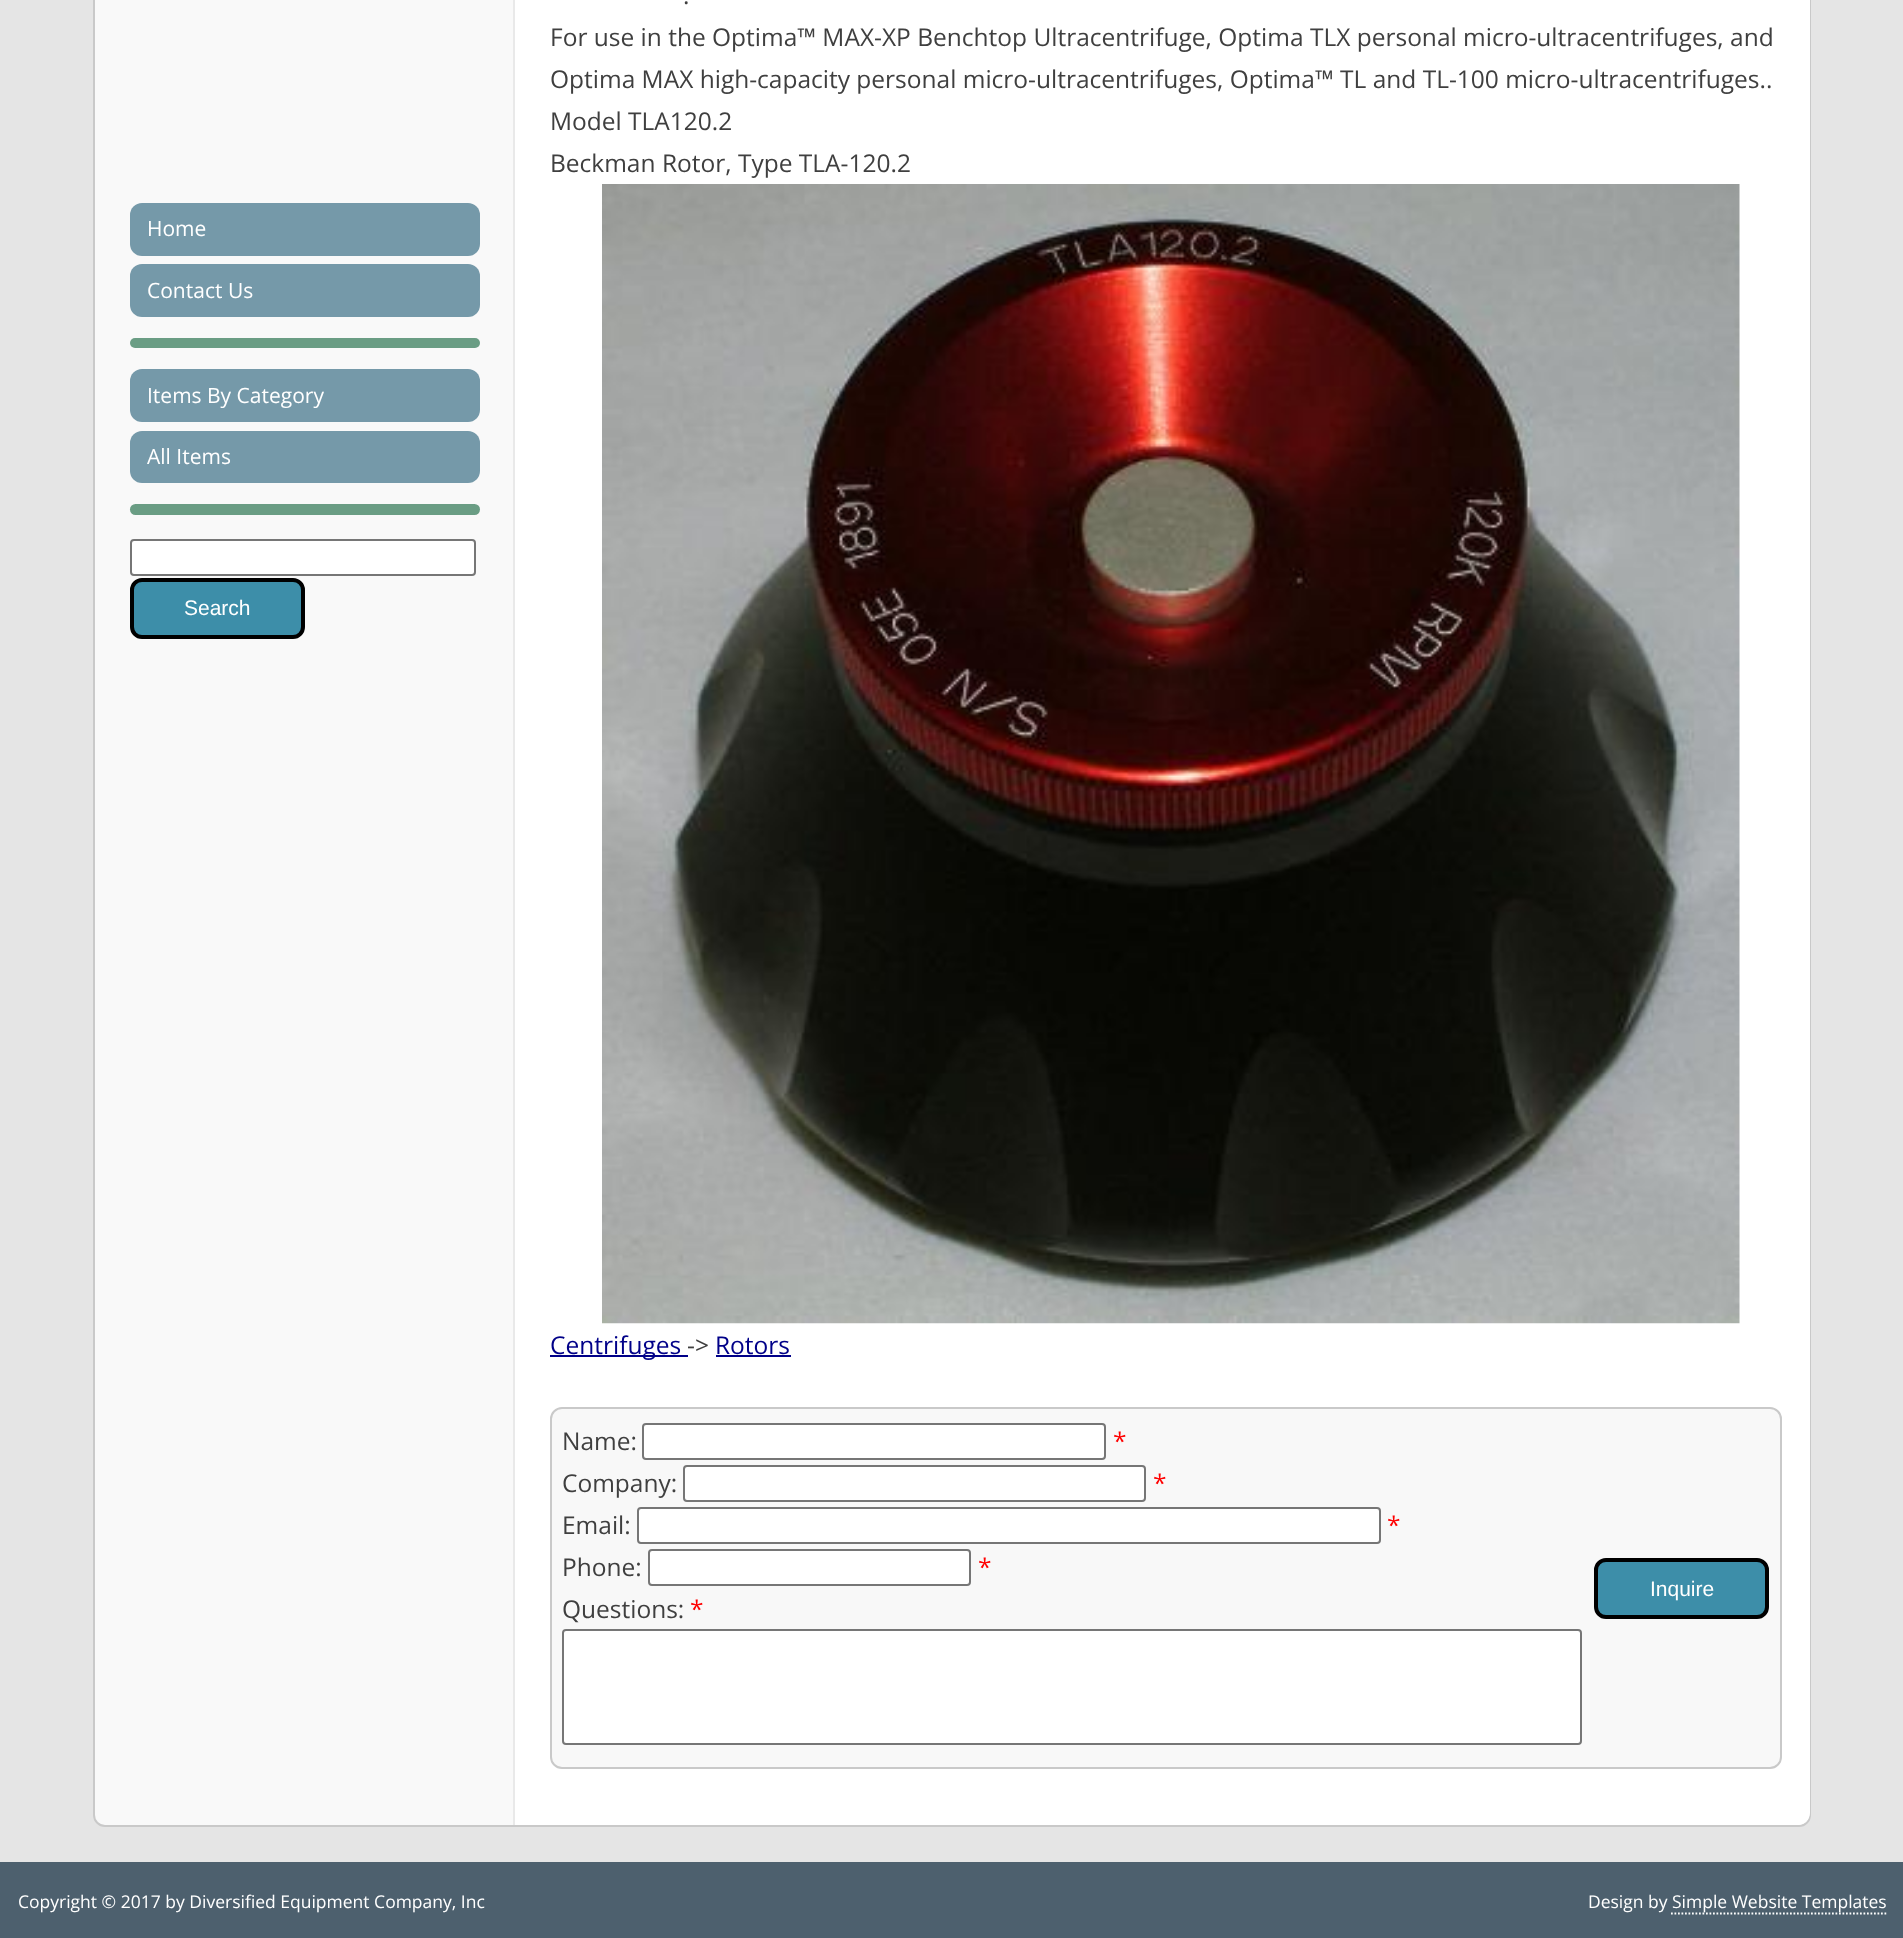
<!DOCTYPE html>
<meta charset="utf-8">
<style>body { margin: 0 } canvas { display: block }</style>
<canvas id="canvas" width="1903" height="1938"></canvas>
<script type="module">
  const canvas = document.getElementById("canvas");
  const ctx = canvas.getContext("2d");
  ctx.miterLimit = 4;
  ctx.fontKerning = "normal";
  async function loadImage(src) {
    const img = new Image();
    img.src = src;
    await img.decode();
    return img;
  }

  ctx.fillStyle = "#e5e5e5";
  ctx.fillRect(0, 0, 1903, 1938);
  ctx.fillStyle = "#f9f9f9";
  ctx.beginPath();
  ctx.roundRect(94, -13, 1716, 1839, 11);
  ctx.fill();
  ctx.strokeStyle = "#c9c9c9";
  ctx.lineWidth = 2;
  ctx.stroke();
  ctx.fillStyle = "#7599a9";
  ctx.beginPath();
  ctx.roundRect(130, 203, 350, 53, 12);
  ctx.fill();
  ctx.font = "21px Open Sans";
  ctx.fillStyle = "#ffffff";
  ctx.fillText("Home", 147, 236);
  ctx.fillStyle = "#7599a9";
  ctx.beginPath();
  ctx.roundRect(130, 264, 350, 53, 12);
  ctx.fill();
  ctx.fillStyle = "#ffffff";
  ctx.fillText("Contact Us", 147, 298);
  ctx.fillStyle = "#6a9d84";
  ctx.beginPath();
  ctx.roundRect(130, 338, 350, 10, 5);
  ctx.fill();
  ctx.fillStyle = "#7599a9";
  ctx.beginPath();
  ctx.roundRect(130, 369, 350, 53, 12);
  ctx.fill();
  ctx.fillStyle = "#ffffff";
  ctx.fillText("Items By Category", 147, 403);
  ctx.fillStyle = "#7599a9";
  ctx.beginPath();
  ctx.roundRect(130, 431, 350, 52, 12);
  ctx.fill();
  ctx.fillStyle = "#ffffff";
  ctx.fillText("All Items", 147, 464);
  ctx.fillStyle = "#6a9d84";
  ctx.beginPath();
  ctx.roundRect(130, 504, 350, 11, 5.5);
  ctx.fill();
  ctx.fillStyle = "#ffffff";
  ctx.beginPath();
  ctx.roundRect(131, 540, 344, 35, 3);
  ctx.fill();
  ctx.strokeStyle = "#767676";
  ctx.stroke();
  ctx.fillStyle = "#3d8ea9";
  ctx.beginPath();
  ctx.roundRect(132, 580, 171, 57, 10);
  ctx.fill();
  ctx.strokeStyle = "#000000";
  ctx.lineWidth = 4;
  ctx.stroke();
  ctx.font = "21px Liberation Sans";
  ctx.fillStyle = "#ffffff";
  ctx.fillText("Search", 184, 615);
  ctx.beginPath();
  ctx.moveTo(513, -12);
  ctx.lineTo(1798, -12);
  ctx.bezierCurveTo(1804.5, -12, 1810, -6.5, 1810, 0);
  ctx.lineTo(1810, 1813);
  ctx.bezierCurveTo(1810, 1819.5, 1804.5, 1825, 1798, 1825);
  ctx.lineTo(513, 1825);
  ctx.closePath();
  ctx.fill();
  ctx.fillStyle = "#e9e9e9";
  ctx.fillRect(513, 0, 2, 1825);
  ctx.font = "24.5px Open Sans";
  ctx.fillStyle = "#3f3f3f";
  ctx.fillText(".", 683, 4);
  ctx.fillText("For use in the Optima™ MAX-XP Benchtop Ultracentrifuge, Optima TLX personal micro-ultracentrifuges, and", 550, 46);
  ctx.fillText("Optima MAX high-capacity personal micro-ultracentrifuges, Optima™ TL and TL-100 micro-ultracentrifuges..", 550, 88);
  ctx.fillText("Model TLA120.2", 550, 130);
  ctx.fillText("Beckman Rotor, Type TLA-120.2", 550, 172);
  ctx.drawImage(await loadImage("img1.png"), 602, 184, 1138, 1140);
  ctx.fillStyle = "#000088";
  ctx.fillRect(550, 1355, 138, 2);
  ctx.fillText("Centrifuges", 550, 1354);
  ctx.fillStyle = "#3f3f3f";
  ctx.fillText("->", 687, 1354);
  ctx.fillStyle = "#000088";
  ctx.fillText("Rotors", 715, 1354);
  ctx.fillRect(716, 1355, 75, 2);
  ctx.fillStyle = "#f8f8f8";
  ctx.beginPath();
  ctx.roundRect(551, 1408, 1230, 360, 11);
  ctx.fill();
  ctx.strokeStyle = "#c9c9c9";
  ctx.lineWidth = 2;
  ctx.stroke();
  ctx.fillStyle = "#3f3f3f";
  ctx.fillText("Name:", 562, 1450);
  ctx.fillStyle = "#ffffff";
  ctx.beginPath();
  ctx.roundRect(643, 1424, 462, 35, 3);
  ctx.fill();
  ctx.strokeStyle = "#767676";
  ctx.stroke();
  ctx.fillStyle = "#ff0000";
  ctx.fillText("*", 1113, 1450);
  ctx.fillStyle = "#3f3f3f";
  ctx.fillText("Company:", 562, 1492);
  ctx.fillStyle = "#ffffff";
  ctx.beginPath();
  ctx.roundRect(684, 1466, 461, 35, 3);
  ctx.fill();
  ctx.stroke();
  ctx.fillStyle = "#ff0000";
  ctx.fillText("*", 1153, 1492);
  ctx.fillStyle = "#3f3f3f";
  ctx.fillText("Email:", 562, 1534);
  ctx.fillStyle = "#ffffff";
  ctx.beginPath();
  ctx.roundRect(638, 1508, 742, 35, 3);
  ctx.fill();
  ctx.stroke();
  ctx.fillStyle = "#ff0000";
  ctx.fillText("*", 1387, 1534);
  ctx.fillStyle = "#3f3f3f";
  ctx.fillText("Phone:", 562, 1576);
  ctx.fillStyle = "#ffffff";
  ctx.beginPath();
  ctx.roundRect(649, 1550, 321, 35, 3);
  ctx.fill();
  ctx.stroke();
  ctx.fillStyle = "#ff0000";
  ctx.fillText("*", 978, 1576);
  ctx.fillStyle = "#3f3f3f";
  ctx.fillText("Questions:", 562, 1618);
  ctx.fillStyle = "#ff0000";
  ctx.fillText("*", 690, 1618);
  ctx.fillStyle = "#ffffff";
  ctx.beginPath();
  ctx.roundRect(563, 1630, 1018, 114, 3);
  ctx.fill();
  ctx.stroke();
  ctx.fillStyle = "#3d8ea9";
  ctx.beginPath();
  ctx.roundRect(1596, 1560, 171, 57, 10);
  ctx.fill();
  ctx.strokeStyle = "#000000";
  ctx.lineWidth = 4;
  ctx.stroke();
  ctx.font = "21px Liberation Sans";
  ctx.fillStyle = "#ffffff";
  ctx.fillText("Inquire", 1650, 1596);
  ctx.fillStyle = "#4d606e";
  ctx.fillRect(0, 1862, 1903, 76);
  ctx.font = "17.5px Open Sans";
  ctx.fillStyle = "#ffffff";
  ctx.fillText("Copyright © 2017 by Diversified Equipment Company, Inc", 18, 1908);
  ctx.fillText("Design by", 1588, 1908);
  ctx.beginPath();
  ctx.moveTo(1671, 1913.5);
  ctx.lineTo(1886.5, 1913.5);
  ctx.strokeStyle = "#ffffff";
  ctx.lineWidth = 1.8;
  ctx.setLineDash([1.75, 1.75]);
  ctx.stroke();
  ctx.fillText("Simple Website Templates", 1672, 1908);
</script>
